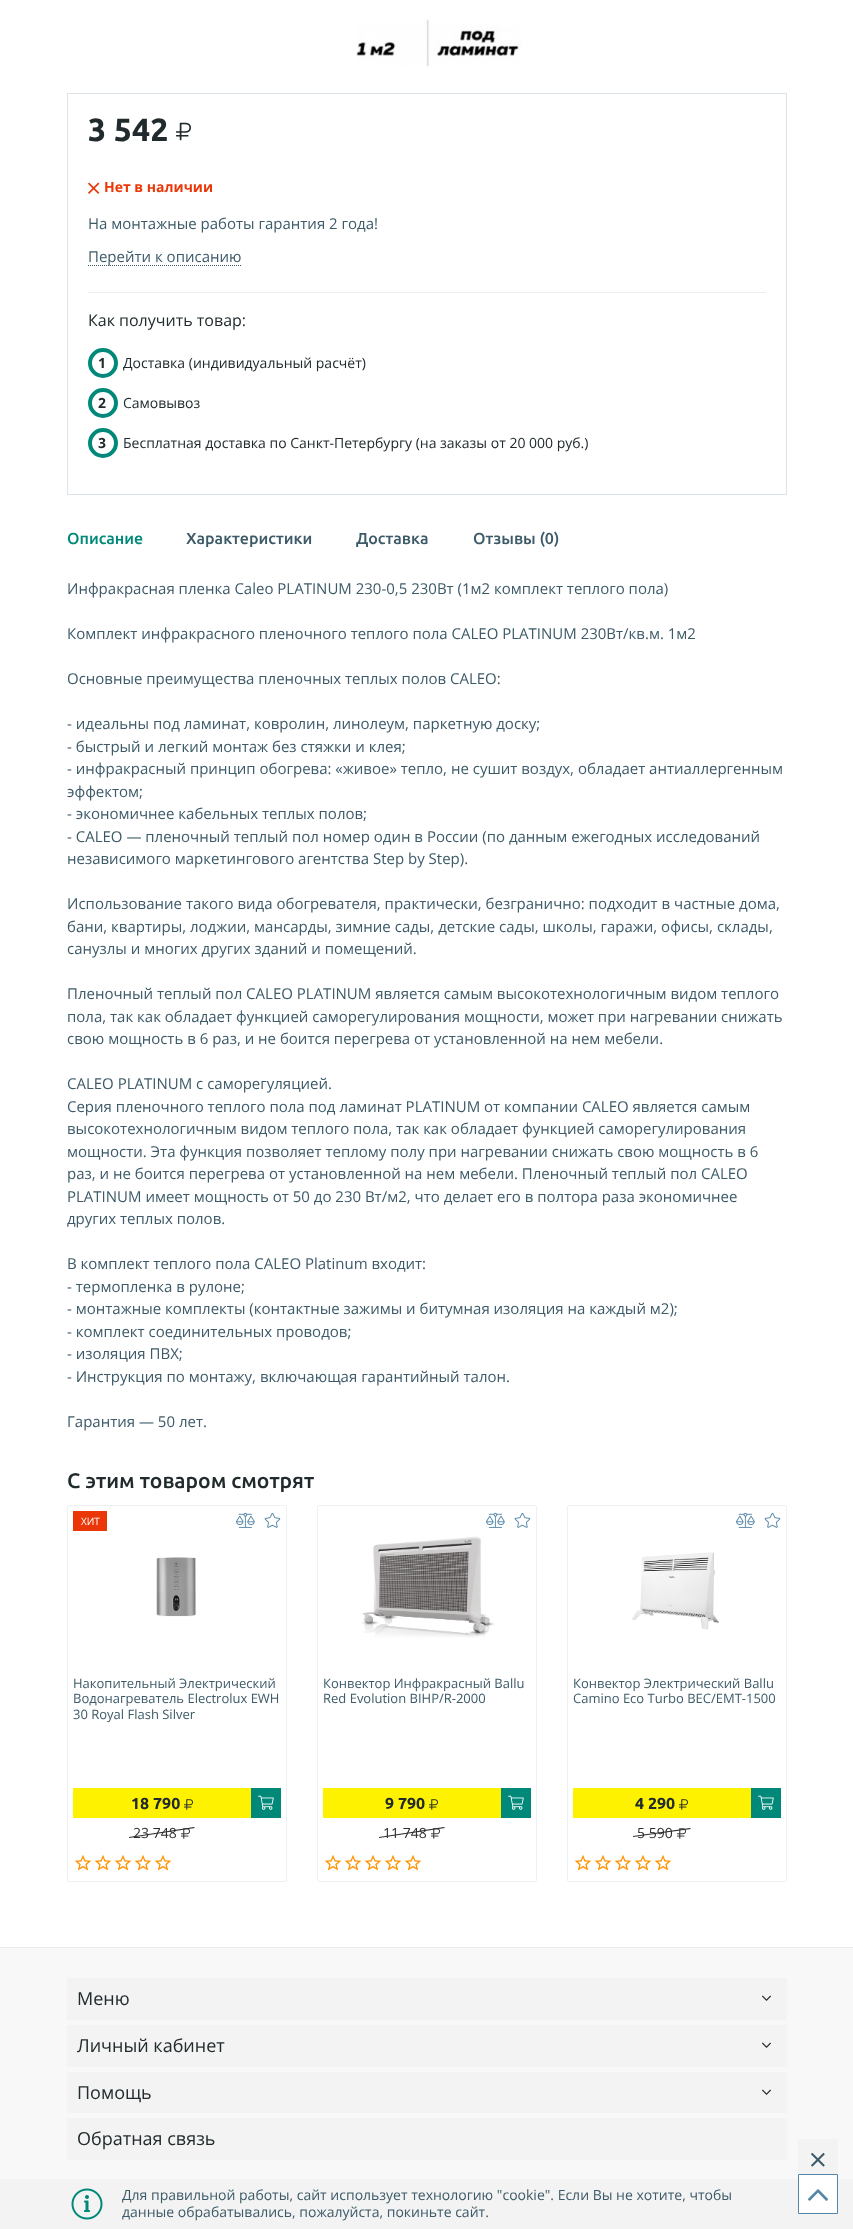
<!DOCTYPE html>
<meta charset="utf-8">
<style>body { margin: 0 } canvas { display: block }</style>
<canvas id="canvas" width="853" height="2229"></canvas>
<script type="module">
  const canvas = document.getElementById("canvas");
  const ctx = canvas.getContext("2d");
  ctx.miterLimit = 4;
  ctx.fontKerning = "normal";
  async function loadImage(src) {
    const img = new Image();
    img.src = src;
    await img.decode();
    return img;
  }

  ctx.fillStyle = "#ffffff";
  ctx.fillRect(0, 0, 853, 2229);
  ctx.drawImage(await loadImage("img1.png"), 356, 19, 166, 48);
  ctx.strokeStyle = "#dce4e9";
  ctx.strokeRect(67.5, 93.5, 719, 401);
  ctx.font = "bold 32px Ubuntu";
  ctx.fillStyle = "#212b2d";
  ctx.fillText("3 542", 88, 141);
  ctx.drawImage(await loadImage("img2.png"), 176, 122, 15, 19);
  ctx.drawImage(await loadImage("img3.png"), 88, 182, 12, 12);
  ctx.font = "bold 14px Open Sans";
  ctx.fillStyle = "#eb3708";
  ctx.fillText("Нет в наличии", 104, 192);
  ctx.font = "15px Open Sans";
  ctx.fillStyle = "#3d5a68";
  ctx.fillText("На монтажные работы гарантия 2 года!", 88, 229);
  ctx.fillText("Перейти к описанию", 88, 262);
  ctx.beginPath();
  ctx.moveTo(88, 265.5);
  ctx.lineTo(241, 265.5);
  ctx.strokeStyle = "#3d5a68";
  ctx.setLineDash([1, 1]);
  ctx.stroke();
  ctx.fillStyle = "#ededed";
  ctx.fillRect(88, 292, 678, 1);
  ctx.font = "16px Open Sans";
  ctx.fillStyle = "#212b2d";
  ctx.fillText("Как получить товар:", 88, 326);
  ctx.beginPath();
  ctx.arc(103, 363, 13, 0, Math.PI * 2);
  ctx.strokeStyle = "#008979";
  ctx.lineWidth = 4;
  ctx.setLineDash([]);
  ctx.stroke();
  ctx.font = "bold 14px Open Sans";
  ctx.fillText("1", 98, 368);
  ctx.font = "14px Open Sans";
  ctx.fillText("Доставка (индивидуальный расчёт)", 123, 368);
  ctx.beginPath();
  ctx.arc(103, 403, 13, 0, Math.PI * 2);
  ctx.stroke();
  ctx.font = "bold 14px Open Sans";
  ctx.fillText("2", 98, 408);
  ctx.font = "14px Open Sans";
  ctx.fillText("Самовывоз", 123, 408);
  ctx.beginPath();
  ctx.arc(103, 443, 13, 0, Math.PI * 2);
  ctx.stroke();
  ctx.font = "bold 14px Open Sans";
  ctx.fillText("3", 98, 448);
  ctx.font = "14px Open Sans";
  ctx.fillText("Бесплатная доставка по Санкт-Петербургу (на заказы от 20 000 руб.)", 123, 448);
  ctx.font = "500 16px Ubuntu";
  ctx.fillStyle = "#008979";
  ctx.fillText("Описание", 67, 544);
  ctx.fillStyle = "#3d5a68";
  ctx.fillText("Характеристики", 186, 544);
  ctx.fillText("Доставка", 356, 544);
  ctx.fillText("Отзывы (0)", 473, 544);
  ctx.font = "15px Open Sans";
  ctx.fillText("Инфракрасная пленка Caleo PLATINUM 230-0,5 230Вт (1м2 комплект теплого пола)", 67, 594);
  ctx.fillText("Комплект инфракрасного пленочного теплого пола CALEO PLATINUM 230Вт/кв.м. 1м2", 67, 639);
  ctx.fillText("Основные преимущества пленочных теплых полов CALEO:", 67, 684);
  ctx.fillText("- идеальны под ламинат, ковролин, линолеум, паркетную доску;", 67, 729);
  ctx.fillText("- быстрый и легкий монтаж без стяжки и клея;", 67, 752);
  ctx.fillText("- инфракрасный принцип обогрева: «живое» тепло, не сушит воздух, обладает антиаллергенным", 67, 774);
  ctx.fillText("эффектом;", 67, 797);
  ctx.fillText("- экономичнее кабельных теплых полов;", 67, 819);
  ctx.fillText("- CALEO — пленочный теплый пол номер один в России (по данным ежегодных исследований", 67, 842);
  ctx.fillText("независимого маркетингового агентства Step by Step).", 67, 864);
  ctx.fillText("Использование такого вида обогревателя, практически, безгранично: подходит в частные дома,", 67, 909);
  ctx.fillText("бани, квартиры, лоджии, мансарды, зимние сады, детские сады, школы, гаражи, офисы, склады,", 67, 932);
  ctx.fillText("санузлы и многих других зданий и помещений.", 67, 954);
  ctx.fillText("Пленочный теплый пол CALEO PLATINUM является самым высокотехнологичным видом теплого", 67, 999);
  ctx.fillText("пола, так как обладает функцией саморегулирования мощности, может при нагревании снижать", 67, 1022);
  ctx.fillText("свою мощность в 6 раз, и не боится перегрева от установленной на нем мебели.", 67, 1044);
  ctx.fillText("CALEO PLATINUM с саморегуляцией.", 67, 1089);
  ctx.fillText("Серия пленочного теплого пола под ламинат PLATINUM от компании CALEO является самым", 67, 1112);
  ctx.fillText("высокотехнологичным видом теплого пола, так как обладает функцией саморегулирования", 67, 1134);
  ctx.fillText("мощности. Эта функция позволяет теплому полу при нагревании снижать свою мощность в 6", 67, 1157);
  ctx.fillText("раз, и не боится перегрева от установленной на нем мебели. Пленочный теплый пол CALEO", 67, 1179);
  ctx.fillText("PLATINUM имеет мощность от 50 до 230 Вт/м2, что делает его в полтора раза экономичнее", 67, 1202);
  ctx.save();
  ctx.beginPath();
  ctx.rect(67, 562, 720, 885);
  ctx.clip();
  ctx.fillText("других теплых полов.", 67, 1224);
  ctx.restore();
  ctx.fillText("В комплект теплого пола CALEO Platinum входит:", 67, 1269);
  ctx.fillText("- термопленка в рулоне;", 67, 1292);
  ctx.fillText("- монтажные комплекты (контактные зажимы и битумная изоляция на каждый м2);", 67, 1314);
  ctx.fillText("- комплект соединительных проводов;", 67, 1337);
  ctx.fillText("- изоляция ПВХ;", 67, 1359);
  ctx.fillText("- Инструкция по монтажу, включающая гарантийный талон.", 67, 1382);
  ctx.fillText("Гарантия — 50 лет.", 67, 1427);
  ctx.font = "500 21px Ubuntu";
  ctx.fillStyle = "#212b2d";
  ctx.fillText("С этим товаром смотрят", 67, 1488);
  ctx.beginPath();
  ctx.roundRect(67.5, 1505.5, 219, 376, 1.5);
  ctx.strokeStyle = "#eef1f4";
  ctx.lineWidth = 1;
  ctx.stroke();
  ctx.fillStyle = "#eb3708";
  ctx.fillRect(73, 1511, 34, 20);
  ctx.font = "10px Open Sans";
  ctx.fillStyle = "#ffffff";
  ctx.fillText("ХИТ", 81, 1525);
  ctx.drawImage(await loadImage("img4.png"), 236, 1512, 19, 16);
  ctx.drawImage(await loadImage("img5.png"), 264, 1512, 17, 16);
  ctx.drawImage(await loadImage("img6.png"), 156, 1557, 40, 60);
  ctx.font = "13px Open Sans";
  ctx.fillStyle = "#3d5a68";
  ctx.fillText("Накопительный Электрический", 73, 1688);
  ctx.fillText("Водонагреватель Electrolux EWH", 73, 1703);
  ctx.fillText("30 Royal Flash Silver", 73, 1719);
  ctx.fillStyle = "#fff200";
  ctx.fillRect(73, 1788, 178, 30);
  ctx.font = "bold 16px Ubuntu";
  ctx.fillStyle = "#212b2d";
  ctx.fillText("18 790", 131, 1809);
  ctx.drawImage(await loadImage("img7.png"), 184, 1799, 9, 11);
  ctx.drawImage(await loadImage("img8.png"), 181, 1828, 9, 11);
  ctx.fillStyle = "#2e2e2e";
  ctx.beginPath();
  ctx.moveTo(129, 1837);
  ctx.lineTo(194, 1827);
  ctx.lineTo(195, 1828);
  ctx.lineTo(129, 1838);
  ctx.closePath();
  ctx.fill();
  ctx.font = "14px Open Sans";
  ctx.fillText("23 748", 133, 1838);
  ctx.fillStyle = "#008979";
  ctx.fillRect(251, 1788, 30, 30);
  ctx.drawImage(await loadImage("img9.png"), 258, 1795, 16, 15);
  ctx.drawImage(await loadImage("img10.png"), 74, 1855, 98, 16);
  ctx.beginPath();
  ctx.roundRect(317.5, 1505.5, 219, 376, 1.5);
  ctx.stroke();
  ctx.drawImage(await loadImage("img4.png"), 486, 1512, 19, 16);
  ctx.drawImage(await loadImage("img5.png"), 514, 1512, 17, 16);
  ctx.drawImage(await loadImage("img11.png"), 361, 1536, 134, 102);
  ctx.font = "13px Open Sans";
  ctx.fillStyle = "#3d5a68";
  ctx.fillText("Конвектор Инфракрасный Ballu", 323, 1688);
  ctx.fillText("Red Evolution BIHP/R-2000", 323, 1703);
  ctx.fillStyle = "#fff200";
  ctx.fillRect(323, 1788, 178, 30);
  ctx.font = "bold 16px Ubuntu";
  ctx.fillStyle = "#212b2d";
  ctx.fillText("9 790", 385, 1809);
  ctx.drawImage(await loadImage("img7.png"), 429, 1799, 9, 11);
  ctx.drawImage(await loadImage("img8.png"), 431, 1828, 9, 11);
  ctx.fillStyle = "#2e2e2e";
  ctx.beginPath();
  ctx.moveTo(379, 1837);
  ctx.lineTo(444, 1827);
  ctx.lineTo(445, 1828);
  ctx.lineTo(379, 1838);
  ctx.closePath();
  ctx.fill();
  ctx.font = "14px Open Sans";
  ctx.fillText("11 748", 383, 1838);
  ctx.fillStyle = "#008979";
  ctx.fillRect(501, 1788, 30, 30);
  ctx.drawImage(await loadImage("img9.png"), 508, 1795, 16, 15);
  ctx.drawImage(await loadImage("img10.png"), 324, 1855, 98, 16);
  ctx.beginPath();
  ctx.roundRect(567.5, 1505.5, 219, 376, 1.5);
  ctx.stroke();
  ctx.drawImage(await loadImage("img4.png"), 736, 1512, 19, 16);
  ctx.drawImage(await loadImage("img5.png"), 764, 1512, 17, 16);
  ctx.drawImage(await loadImage("img12.png"), 631, 1552, 88, 78);
  ctx.font = "13px Open Sans";
  ctx.fillStyle = "#3d5a68";
  ctx.fillText("Конвектор Электрический Ballu", 573, 1688);
  ctx.fillText("Camino Eco Turbo BEC/EMT-1500", 573, 1703);
  ctx.fillStyle = "#fff200";
  ctx.fillRect(573, 1788, 178, 30);
  ctx.font = "bold 16px Ubuntu";
  ctx.fillStyle = "#212b2d";
  ctx.fillText("4 290", 635, 1809);
  ctx.drawImage(await loadImage("img7.png"), 679, 1799, 9, 11);
  ctx.font = "14px Open Sans";
  ctx.fillStyle = "#2e2e2e";
  ctx.fillText("5 590", 637, 1838);
  ctx.drawImage(await loadImage("img8.png"), 677, 1828, 9, 11);
  ctx.beginPath();
  ctx.moveTo(633, 1836);
  ctx.lineTo(690, 1828);
  ctx.lineTo(691, 1829);
  ctx.lineTo(633, 1837);
  ctx.closePath();
  ctx.fill();
  ctx.fillStyle = "#008979";
  ctx.fillRect(751, 1788, 30, 30);
  ctx.drawImage(await loadImage("img9.png"), 758, 1795, 16, 15);
  ctx.drawImage(await loadImage("img10.png"), 574, 1855, 98, 16);
  ctx.fillStyle = "#f8f8f8";
  ctx.fillRect(0, 1948, 853, 231);
  ctx.fillStyle = "#e7ecee";
  ctx.fillRect(0, 1947, 853, 1);
  ctx.fillStyle = "#f3f3f3";
  ctx.fillRect(67, 1978, 720, 42);
  ctx.font = "18px Open Sans";
  ctx.fillStyle = "#212b2d";
  ctx.fillText("Меню", 77, 2005);
  ctx.drawImage(await loadImage("img13.png"), 762, 1995, 9, 6);
  ctx.fillStyle = "#f3f3f3";
  ctx.fillRect(67, 2025, 720, 42);
  ctx.fillStyle = "#212b2d";
  ctx.fillText("Личный кабинет", 77, 2052);
  ctx.drawImage(await loadImage("img13.png"), 762, 2042, 9, 6);
  ctx.fillStyle = "#f3f3f3";
  ctx.fillRect(67, 2072, 720, 41);
  ctx.fillStyle = "#212b2d";
  ctx.fillText("Помощь", 77, 2099);
  ctx.drawImage(await loadImage("img13.png"), 762, 2089, 9, 6);
  ctx.fillStyle = "#f3f3f3";
  ctx.fillRect(67, 2118, 720, 42);
  ctx.fillStyle = "#212b2d";
  ctx.fillText("Обратная связь", 77, 2145);
  ctx.fillStyle = "#f3f3f3";
  ctx.fillRect(0, 2179, 853, 50);
  ctx.fillStyle = "#ffffff";
  ctx.beginPath();
  ctx.rect(798.5, 2174.5, 39, 39);
  ctx.fill();
  ctx.strokeStyle = "#5586a6";
  ctx.stroke();
  ctx.drawImage(await loadImage("img14.png"), 808, 2189, 20, 12);
  ctx.fillStyle = "#f3f3f3";
  ctx.fillRect(798, 2139, 40, 35);
  ctx.drawImage(await loadImage("img15.png"), 811, 2152, 14, 15);
  ctx.drawImage(await loadImage("img16.png"), 71, 2188, 32, 32);
  ctx.font = "14px Open Sans";
  ctx.fillStyle = "#3d5a68";
  ctx.fillText("Для правильной работы, сайт использует технологию \"cookie\". Если Вы не хотите, чтобы", 122, 2200);
  ctx.fillText("данные обрабатывались, пожалуйста, покиньте сайт.", 122, 2217);
</script>
